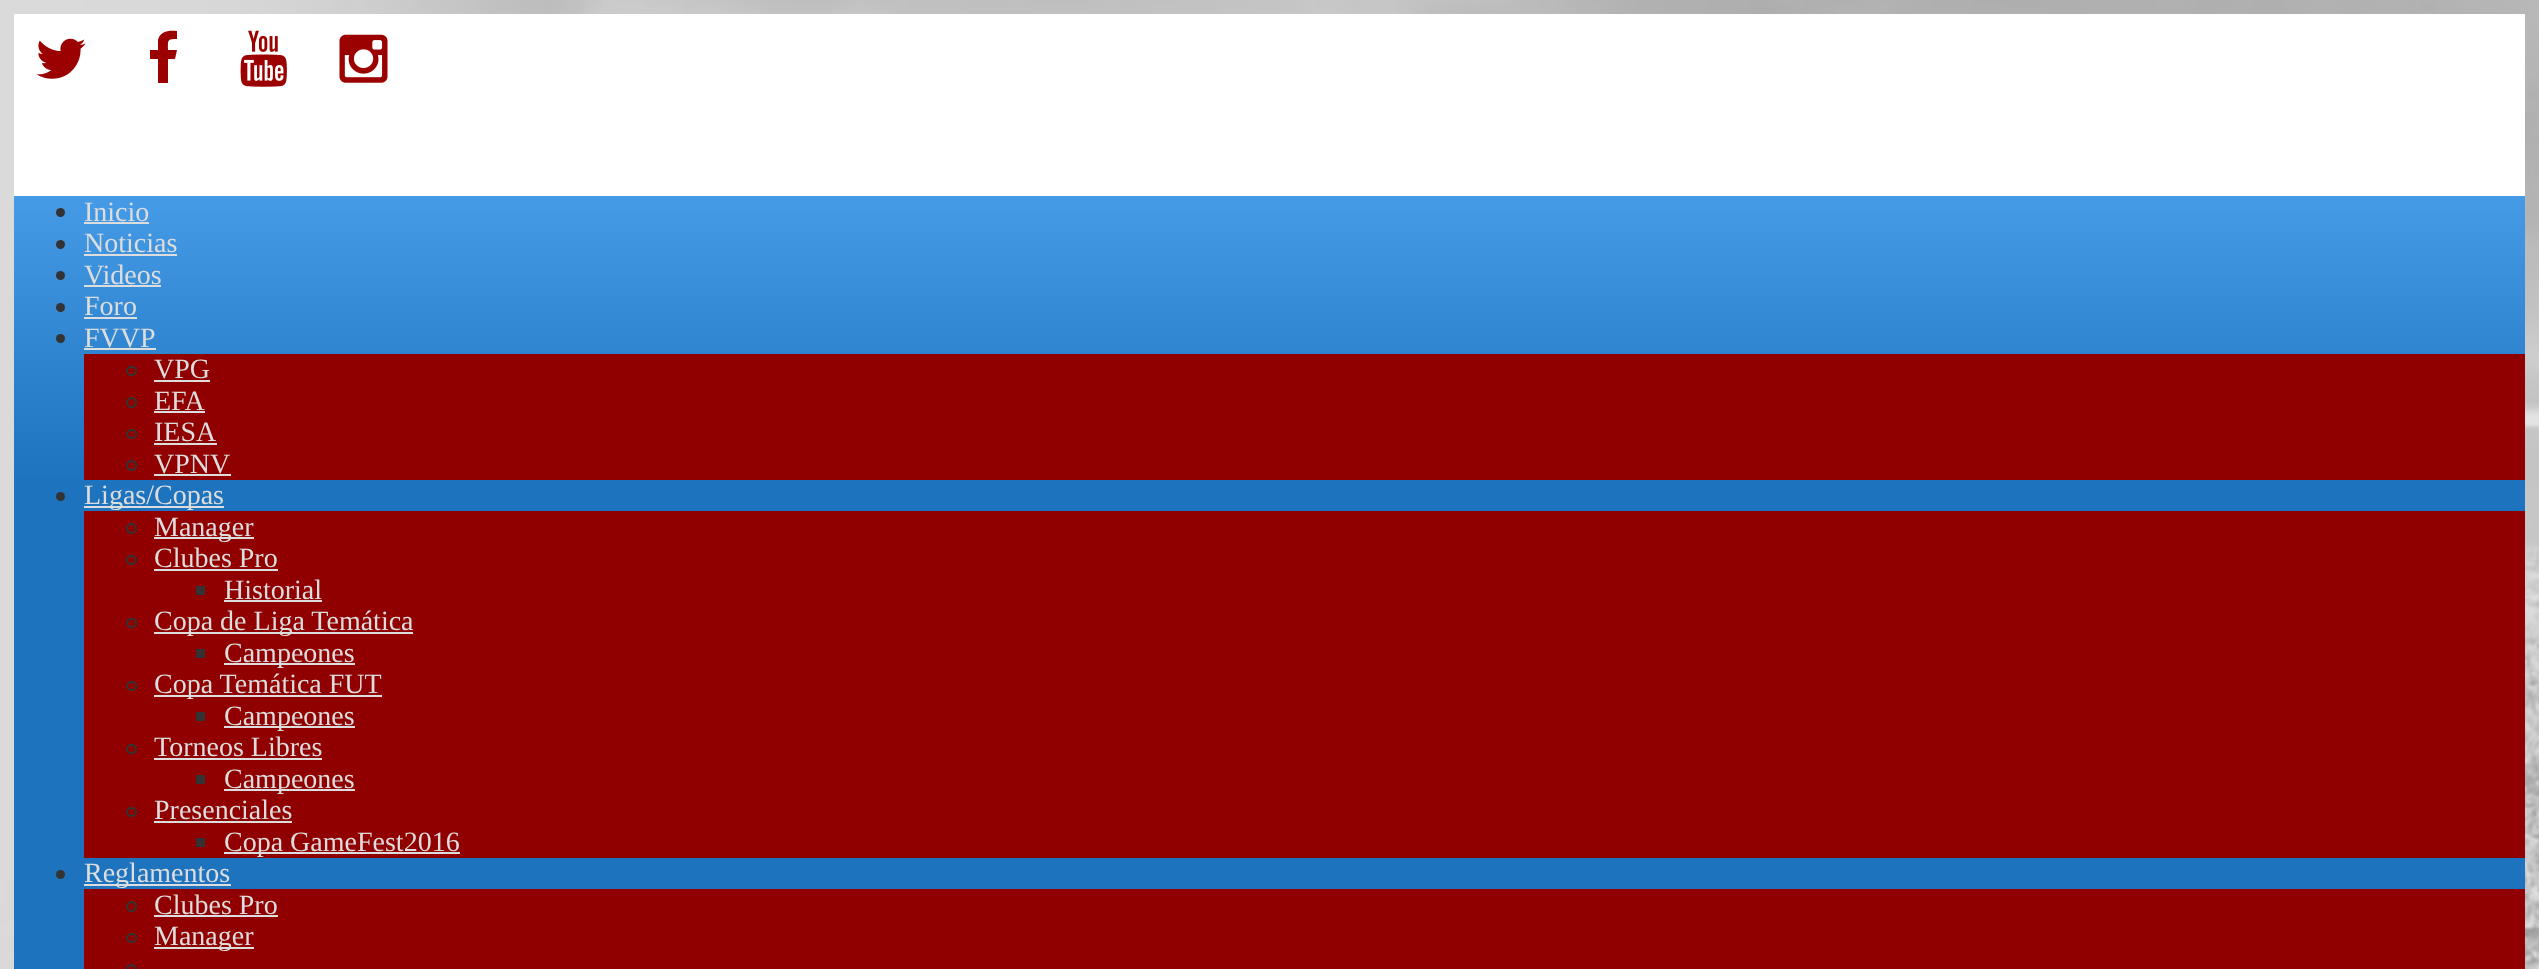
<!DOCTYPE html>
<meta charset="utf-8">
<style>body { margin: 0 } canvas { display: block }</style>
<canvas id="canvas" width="2539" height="969"></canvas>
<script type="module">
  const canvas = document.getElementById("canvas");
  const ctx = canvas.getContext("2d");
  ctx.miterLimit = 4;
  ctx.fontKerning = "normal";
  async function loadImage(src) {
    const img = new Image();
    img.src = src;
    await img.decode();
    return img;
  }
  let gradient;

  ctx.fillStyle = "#ffffff";
  ctx.fillRect(0, 0, 2539, 969);
  ctx.drawImage(await loadImage("img1.png"), 0, 0, 2539, 969);
  ctx.fillRect(14, 14, 2511, 182);
  ctx.drawImage(await loadImage("img2.png"), 36, 38, 50, 41);
  ctx.fillStyle = "#9b0101";
  ctx.beginPath();
  ctx.moveTo(177, 31);
  ctx.lineTo(177, 39);
  ctx.bezierCurveTo(167, 39, 168, 40, 168, 50);
  ctx.lineTo(177, 50);
  ctx.lineTo(175, 59);
  ctx.lineTo(168, 59);
  ctx.lineTo(168, 83);
  ctx.lineTo(158, 83);
  ctx.lineTo(158, 59);
  ctx.lineTo(150, 59);
  ctx.lineTo(150, 50);
  ctx.lineTo(158, 50);
  ctx.lineTo(158, 40);
  ctx.bezierCurveTo(160, 31, 169, 30, 177, 31);
  ctx.closePath();
  ctx.fill();
  ctx.drawImage(await loadImage("img3.png"), 240, 30, 47, 57);
  ctx.drawImage(await loadImage("img4.png"), 339, 34, 49, 49);
  gradient = ctx.createLinearGradient(14, 196, 14, 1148);
  gradient.addColorStop(0, "#469be6");
  gradient.addColorStop(0.3, "#1e73be");
  ctx.fillStyle = gradient;
  ctx.fillRect(14, 196, 2511, 773);
  ctx.fillStyle = "#333333";
  ctx.beginPath();
  ctx.arc(60.5, 212.5, 4.5, 0, Math.PI * 2);
  ctx.fill();
  ctx.font = "28px Liberation Serif";
  ctx.fillStyle = "#dddddd";
  ctx.fillText("Inicio", 84, 221);
  ctx.fillRect(84, 222, 65, 2);
  ctx.fillStyle = "#333333";
  ctx.beginPath();
  ctx.arc(60.5, 244.5, 4.5, 0, Math.PI * 2);
  ctx.fill();
  ctx.fillStyle = "#dddddd";
  ctx.fillText("Noticias", 84, 252);
  ctx.fillRect(84, 254, 93, 2);
  ctx.fillStyle = "#333333";
  ctx.beginPath();
  ctx.arc(60.5, 275.5, 4.5, 0, Math.PI * 2);
  ctx.fill();
  ctx.fillStyle = "#dddddd";
  ctx.fillText("Videos", 84, 284);
  ctx.fillRect(84, 285, 77, 2);
  ctx.fillStyle = "#333333";
  ctx.beginPath();
  ctx.arc(60.5, 307.5, 4.5, 0, Math.PI * 2);
  ctx.fill();
  ctx.fillStyle = "#dddddd";
  ctx.fillText("Foro", 84, 315);
  ctx.fillRect(84, 317, 53, 2);
  ctx.fillStyle = "#333333";
  ctx.beginPath();
  ctx.arc(60.5, 338.5, 4.5, 0, Math.PI * 2);
  ctx.fill();
  ctx.fillStyle = "#dddddd";
  ctx.fillText("FVVP", 84, 347);
  ctx.fillRect(84, 348, 72, 2);
  ctx.fillStyle = "#910000";
  ctx.fillRect(84, 354, 2441, 126);
  ctx.beginPath();
  ctx.roundRect(127, 367, 9, 8, 4);
  ctx.strokeStyle = "#333333";
  ctx.lineWidth = 2;
  ctx.stroke();
  ctx.fillStyle = "#dddddd";
  ctx.fillText("VPG", 154, 378);
  ctx.fillRect(154, 380, 56, 2);
  ctx.beginPath();
  ctx.arc(131.5, 402.5, 4.5, 0, Math.PI * 2);
  ctx.stroke();
  ctx.fillText("EFA", 154, 410);
  ctx.fillRect(154, 411, 51, 2);
  ctx.beginPath();
  ctx.roundRect(127, 430, 9, 8, 4);
  ctx.stroke();
  ctx.fillText("IESA", 154, 441);
  ctx.fillRect(154, 443, 63, 2);
  ctx.beginPath();
  ctx.arc(131.5, 465.5, 4.5, 0, Math.PI * 2);
  ctx.stroke();
  ctx.fillText("VPNV", 154, 473);
  ctx.fillRect(154, 474, 77, 2);
  ctx.fillStyle = "#333333";
  ctx.beginPath();
  ctx.arc(60.5, 496.5, 4.5, 0, Math.PI * 2);
  ctx.fill();
  ctx.fillStyle = "#dddddd";
  ctx.fillRect(84, 506, 140, 2);
  ctx.fillText("Ligas/Copas", 84, 504);
  ctx.fillStyle = "#910000";
  ctx.fillRect(84, 511, 2441, 347);
  ctx.beginPath();
  ctx.arc(131.5, 528.5, 4.5, 0, Math.PI * 2);
  ctx.stroke();
  ctx.fillStyle = "#dddddd";
  ctx.fillRect(154, 537, 100, 2);
  ctx.fillText("Manager", 154, 536);
  ctx.beginPath();
  ctx.roundRect(127, 556, 9, 8, 4);
  ctx.stroke();
  ctx.fillText("Clubes Pro", 154, 567);
  ctx.fillRect(154, 569, 124, 2);
  ctx.fillStyle = "#333333";
  ctx.fillRect(196, 586, 9, 9);
  ctx.fillStyle = "#dddddd";
  ctx.fillText("Historial", 224, 599);
  ctx.fillRect(224, 600, 98, 2);
  ctx.beginPath();
  ctx.roundRect(127, 619, 9, 8, 4);
  ctx.stroke();
  ctx.fillRect(154, 632, 259, 2);
  ctx.fillText("Copa de Liga Temática", 154, 630);
  ctx.fillStyle = "#333333";
  ctx.fillRect(196, 649, 9, 9);
  ctx.fillStyle = "#dddddd";
  ctx.fillRect(224, 663, 131, 2);
  ctx.fillText("Campeones", 224, 662);
  ctx.beginPath();
  ctx.roundRect(127, 682, 9, 8, 4);
  ctx.stroke();
  ctx.fillRect(154, 695, 228, 2);
  ctx.fillText("Copa Temática FUT", 154, 693);
  ctx.fillStyle = "#333333";
  ctx.fillRect(196, 712, 9, 9);
  ctx.fillStyle = "#dddddd";
  ctx.fillRect(224, 726, 131, 2);
  ctx.fillText("Campeones", 224, 725);
  ctx.beginPath();
  ctx.roundRect(127, 745, 9, 8, 4);
  ctx.stroke();
  ctx.fillText("Torneos Libres", 154, 756);
  ctx.fillRect(154, 758, 168, 2);
  ctx.fillStyle = "#333333";
  ctx.fillRect(196, 775, 9, 9);
  ctx.fillStyle = "#dddddd";
  ctx.fillRect(224, 789, 131, 2);
  ctx.fillText("Campeones", 224, 788);
  ctx.beginPath();
  ctx.roundRect(127, 808, 9, 8, 4);
  ctx.stroke();
  ctx.fillText("Presenciales", 154, 819);
  ctx.fillRect(154, 821, 138, 2);
  ctx.fillStyle = "#333333";
  ctx.fillRect(196, 838, 9, 9);
  ctx.fillStyle = "#dddddd";
  ctx.fillRect(224, 852, 236, 2);
  ctx.fillText("Copa GameFest2016", 224, 851);
  ctx.fillStyle = "#333333";
  ctx.beginPath();
  ctx.arc(60.5, 874.5, 4.5, 0, Math.PI * 2);
  ctx.fill();
  ctx.fillStyle = "#dddddd";
  ctx.fillRect(84, 884, 147, 2);
  ctx.fillText("Reglamentos", 84, 882);
  ctx.fillStyle = "#910000";
  ctx.fillRect(84, 889, 2441, 80);
  ctx.beginPath();
  ctx.arc(131.5, 906.5, 4.5, 0, Math.PI * 2);
  ctx.stroke();
  ctx.fillStyle = "#dddddd";
  ctx.fillText("Clubes Pro", 154, 914);
  ctx.fillRect(154, 915, 124, 2);
  ctx.beginPath();
  ctx.roundRect(127, 934, 9, 8, 4);
  ctx.stroke();
  ctx.fillRect(154, 947, 100, 2);
  ctx.fillText("Manager", 154, 945);
  ctx.beginPath();
  ctx.arc(131.5, 969.5, 4.5, 0, Math.PI * 2);
  ctx.stroke();
</script>
